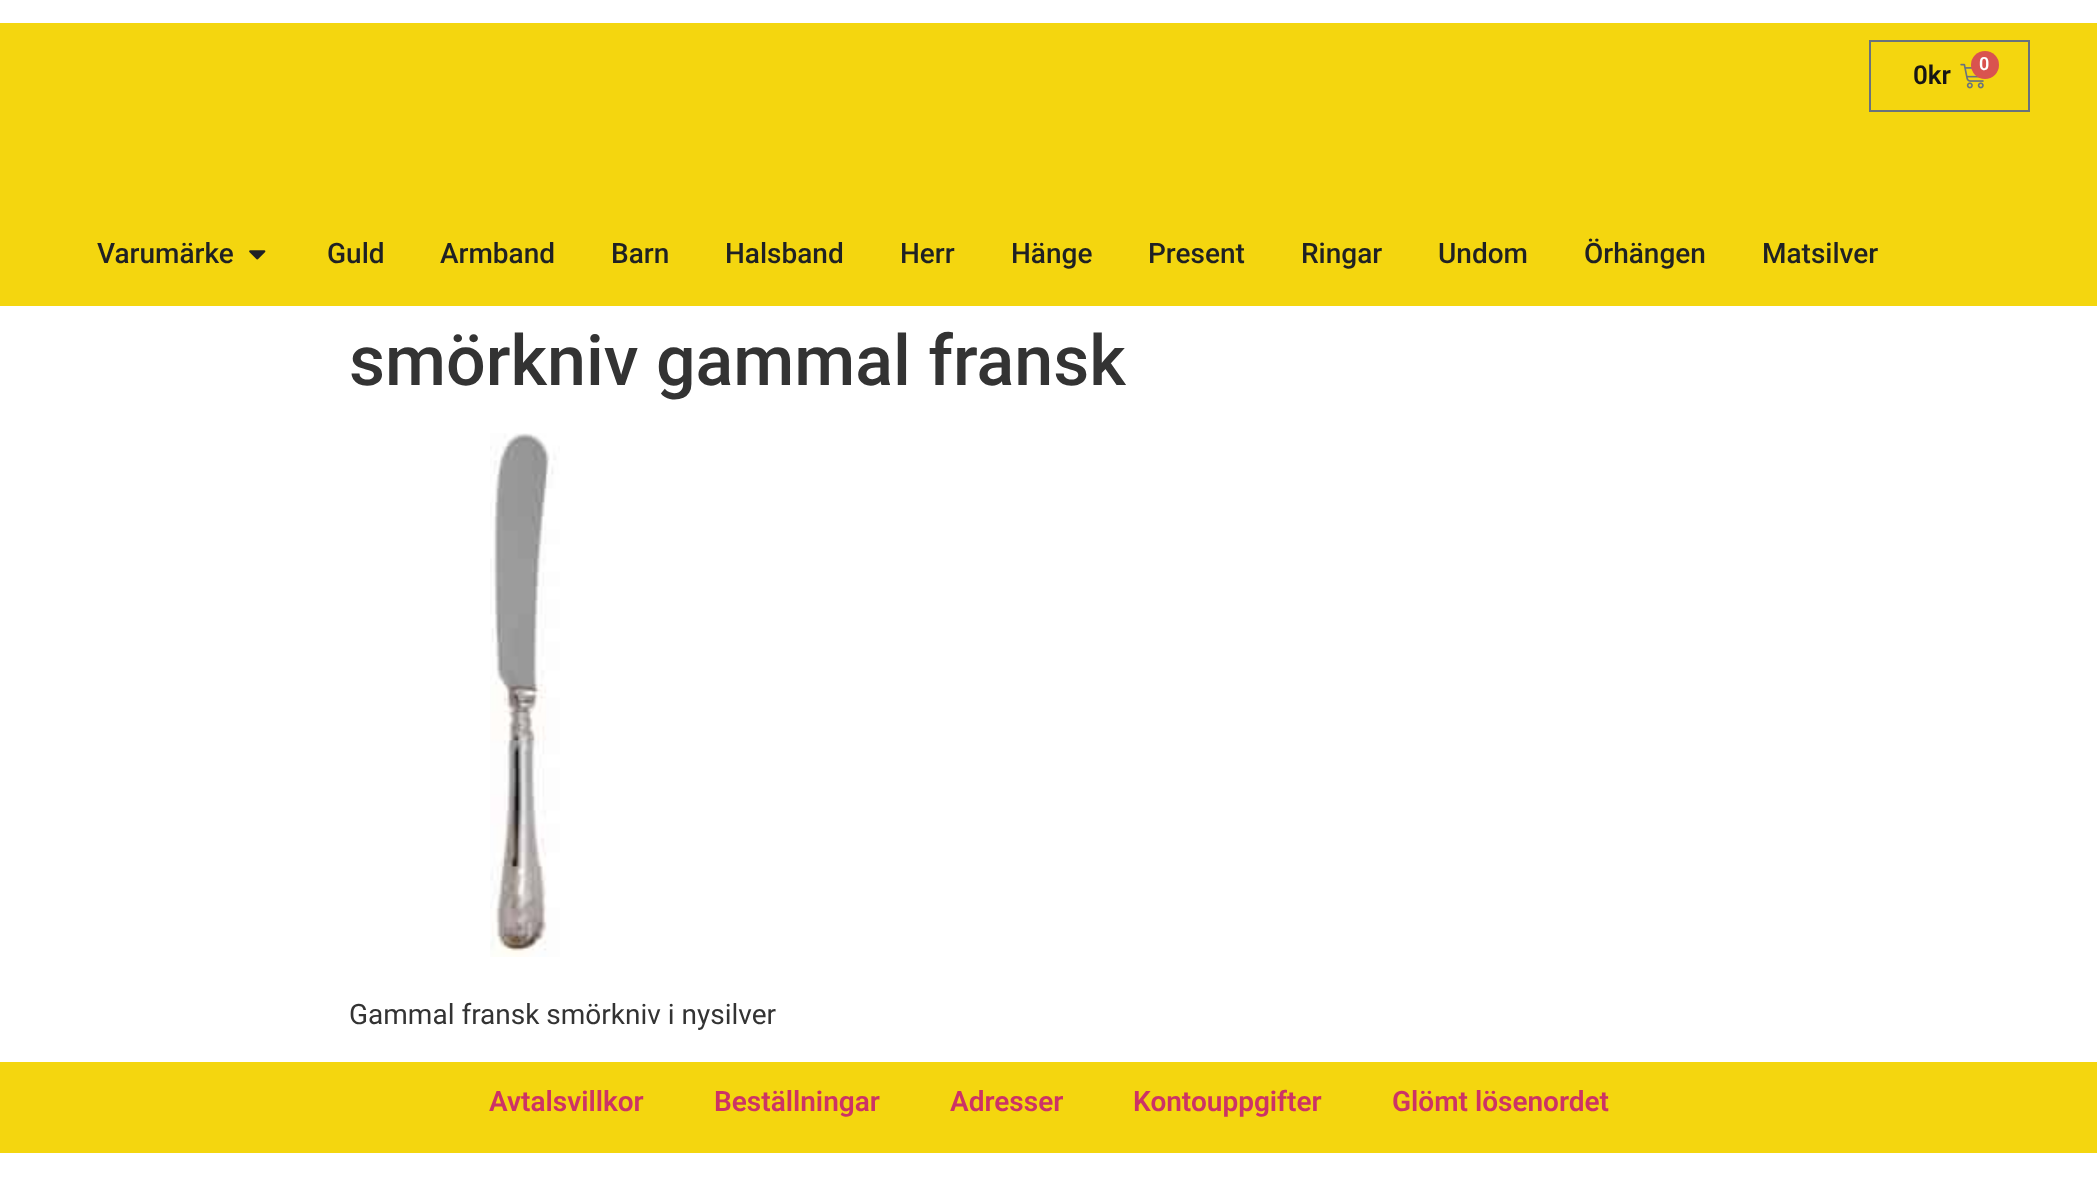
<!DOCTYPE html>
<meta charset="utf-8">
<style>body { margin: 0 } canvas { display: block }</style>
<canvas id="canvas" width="2097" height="1188"></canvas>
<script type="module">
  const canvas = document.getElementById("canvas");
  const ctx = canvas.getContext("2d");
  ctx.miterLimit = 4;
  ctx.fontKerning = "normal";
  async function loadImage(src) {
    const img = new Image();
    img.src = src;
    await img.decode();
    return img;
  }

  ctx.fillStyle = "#ffffff";
  ctx.fillRect(0, 0, 2097, 1188);
  ctx.fillStyle = "#f4d60f";
  ctx.fillRect(0, 23, 2097, 283);
  ctx.strokeStyle = "#69727d";
  ctx.lineWidth = 2;
  ctx.strokeRect(1870, 41, 159, 70);
  ctx.font = "600 26px Roboto";
  ctx.fillStyle = "#171515";
  ctx.fillText("0kr", 1913, 84);
  ctx.drawImage(await loadImage("img1.png"), 1960, 63, 24, 26);
  ctx.fillStyle = "#d9534f";
  ctx.beginPath();
  ctx.arc(1985, 65, 14, 0, Math.PI * 2);
  ctx.fill();
  ctx.font = "600 18px Roboto";
  ctx.fillStyle = "#ffffff";
  ctx.fillText("0", 1979, 70);
  ctx.font = "500 28px Roboto";
  ctx.fillStyle = "#1f2124";
  ctx.fillText("Varumärke", 97, 263);
  ctx.drawImage(await loadImage("img2.png"), 249, 250, 17, 10);
  ctx.fillText("Guld", 327, 263);
  ctx.fillText("Armband", 440, 263);
  ctx.fillText("Barn", 611, 263);
  ctx.fillText("Halsband", 725, 263);
  ctx.fillText("Herr", 900, 263);
  ctx.fillText("Hänge", 1011, 263);
  ctx.fillText("Present", 1148, 263);
  ctx.fillText("Ringar", 1301, 263);
  ctx.fillText("Undom", 1438, 263);
  ctx.fillText("Örhängen", 1584, 263);
  ctx.fillText("Matsilver", 1762, 263);
  ctx.font = "500 70px Roboto";
  ctx.fillStyle = "#333333";
  ctx.fillText("smörkniv gammal fransk", 349, 385);
  ctx.drawImage(await loadImage("img3.png"), 490, 433, 70, 524);
  ctx.font = "28px Roboto";
  ctx.fillText("Gammal fransk smörkniv i nysilver", 349, 1024);
  ctx.fillStyle = "#f4d60f";
  ctx.fillRect(0, 1062, 2097, 91);
  ctx.font = "600 28px Roboto";
  ctx.fillStyle = "#cc3366";
  ctx.fillText("Avtalsvillkor", 489, 1111);
  ctx.fillText("Beställningar", 714, 1111);
  ctx.fillText("Adresser", 950, 1111);
  ctx.fillText("Kontouppgifter", 1133, 1111);
  ctx.fillText("Glömt lösenordet", 1392, 1111);
</script>
